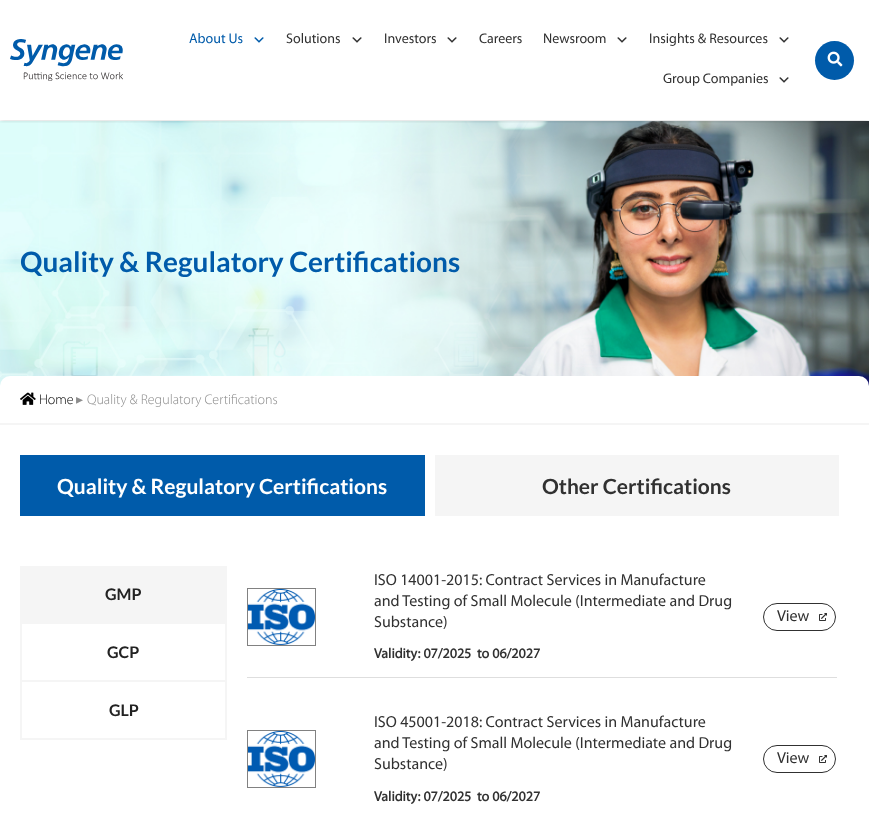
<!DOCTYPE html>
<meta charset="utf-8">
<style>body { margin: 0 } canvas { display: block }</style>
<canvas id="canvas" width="869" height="816"></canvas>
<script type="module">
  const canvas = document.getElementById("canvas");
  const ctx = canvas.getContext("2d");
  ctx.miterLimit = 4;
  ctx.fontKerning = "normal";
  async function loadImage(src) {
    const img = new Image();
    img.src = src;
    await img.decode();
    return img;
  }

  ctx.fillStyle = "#ffffff";
  ctx.fillRect(0, 0, 869, 816);
  ctx.drawImage(await loadImage("img5.png"), 0, 121, 869, 265);
  ctx.save();
  ctx.beginPath();
  ctx.rect(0, 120, 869, 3);
  ctx.clip();
  ctx.fillStyle = "rgba(0, 0, 0, 0.2)";
  ctx.filter = "blur(2.5px)";
  ctx.beginPath();
  ctx.rect(0, 0, 869, 120);
  ctx.fill();
  ctx.filter = "none";
  ctx.restore();
  ctx.drawImage(await loadImage("img1.png"), 10, 39, 113, 42);
  ctx.font = "14px Myriad";
  ctx.fillStyle = "#005baa";
  ctx.fillText("About Us", 189, 43);
  ctx.drawImage(await loadImage("img2.png"), 254, 37, 10, 6);
  ctx.fillStyle = "#313131";
  ctx.fillText("Solutions", 286, 43);
  ctx.drawImage(await loadImage("img3.png"), 352, 37, 10, 6);
  ctx.fillText("Investors", 384, 43);
  ctx.drawImage(await loadImage("img3.png"), 447, 37, 10, 6);
  ctx.fillText("Careers", 479, 43);
  ctx.fillText("Newsroom", 543, 43);
  ctx.drawImage(await loadImage("img3.png"), 617, 37, 10, 6);
  ctx.fillText("Insights & Resources", 649, 43);
  ctx.drawImage(await loadImage("img3.png"), 779, 37, 10, 6);
  ctx.fillText("Group Companies", 663, 83);
  ctx.drawImage(await loadImage("img3.png"), 779, 77, 10, 6);
  ctx.fillStyle = "#005baa";
  ctx.beginPath();
  ctx.arc(834.5, 60.5, 19.5, 0, Math.PI * 2);
  ctx.fill();
  ctx.drawImage(await loadImage("img4.png"), 827, 51, 16, 16);
  ctx.font = "bold 28px Lato";
  ctx.fillText("Quality & Regulatory Certifications", 20, 272);
  ctx.fillStyle = "#f5f5f5";
  ctx.fillRect(0, 423, 869, 2);
  ctx.fillStyle = "#ffffff";
  ctx.beginPath();
  ctx.roundRect(0, 376, 869, 47, [10, 10, 0, 0]);
  ctx.fill();
  ctx.drawImage(await loadImage("img6.png"), 20, 392, 16, 13);
  ctx.font = "300 14px Myriad";
  ctx.fillStyle = "#000000";
  ctx.fillText("Home", 39, 404);
  ctx.font = "14px DejaVu Sans";
  ctx.fillStyle = "#8c8c8c";
  ctx.fillText("▸", 76, 404);
  ctx.font = "300 14px Myriad";
  ctx.fillText("Quality & Regulatory Certifications", 87, 404);
  ctx.fillStyle = "#005baa";
  ctx.fillRect(20, 455, 405, 61);
  ctx.font = "bold 21px Lato";
  ctx.fillStyle = "#ffffff";
  ctx.fillText("Quality & Regulatory Certifications", 57, 494);
  ctx.fillStyle = "#f5f5f5";
  ctx.fillRect(435, 455, 404, 61);
  ctx.fillStyle = "#313131";
  ctx.fillText("Other Certifications", 542, 494);
  ctx.fillStyle = "#f5f5f5";
  ctx.fillRect(22, 566, 203, 56);
  ctx.fillRect(225, 566, 2, 174);
  ctx.fillRect(20, 622, 207, 2);
  ctx.fillRect(20, 566, 2, 58);
  ctx.font = "bold 16px Lato";
  ctx.fillStyle = "#222222";
  ctx.fillText("GMP", 105, 600);
  ctx.fillStyle = "#f5f5f5";
  ctx.fillRect(20, 680, 207, 2);
  ctx.fillRect(20, 624, 2, 58);
  ctx.fillStyle = "#222222";
  ctx.fillText("GCP", 107, 658);
  ctx.fillStyle = "#f5f5f5";
  ctx.fillRect(20, 738, 207, 2);
  ctx.fillRect(20, 682, 2, 58);
  ctx.fillStyle = "#222222";
  ctx.fillText("GLP", 109, 716);
  ctx.font = "16px Myriad";
  ctx.fillStyle = "#313131";
  ctx.fillText("ISO 14001-2015: Contract Services in Manufacture", 374, 585);
  ctx.fillText("and Testing of Small Molecule (Intermediate and Drug", 374, 606);
  ctx.fillText("Substance)", 374, 627);
  ctx.font = "bold 14px Myriad";
  ctx.fillText("Validity: 07/2025", 374, 658);
  ctx.fillText("to 06/2027", 477, 658);
  ctx.fillStyle = "#dedede";
  ctx.fillRect(247, 677, 590, 1);
  ctx.strokeStyle = "#818181";
  ctx.strokeRect(247.5, 588.5, 68, 57);
  ctx.drawImage(await loadImage("img7.png"), 248, 589, 67, 56);
  ctx.beginPath();
  ctx.roundRect(763.5, 603.5, 72, 27, 13.5);
  ctx.strokeStyle = "#313131";
  ctx.stroke();
  ctx.font = "16px Myriad";
  ctx.fillStyle = "#313131";
  ctx.fillText("View", 777, 621);
  ctx.drawImage(await loadImage("img8.png"), 819, 613, 8, 8);
  ctx.strokeStyle = "#818181";
  ctx.strokeRect(247.5, 730.5, 68, 57);
  ctx.drawImage(await loadImage("img7.png"), 248, 731, 67, 56);
  ctx.fillText("ISO 45001-2018: Contract Services in Manufacture", 374, 727);
  ctx.fillText("and Testing of Small Molecule (Intermediate and Drug", 374, 748);
  ctx.fillText("Substance)", 374, 769);
  ctx.font = "bold 14px Myriad";
  ctx.fillText("Validity: 07/2025", 374, 801);
  ctx.fillText("to 06/2027", 477, 801);
  ctx.beginPath();
  ctx.roundRect(763.5, 745.5, 72, 27, 13.5);
  ctx.strokeStyle = "#313131";
  ctx.stroke();
  ctx.font = "16px Myriad";
  ctx.fillText("View", 777, 763);
  ctx.drawImage(await loadImage("img8.png"), 819, 755, 8, 8);
</script>
